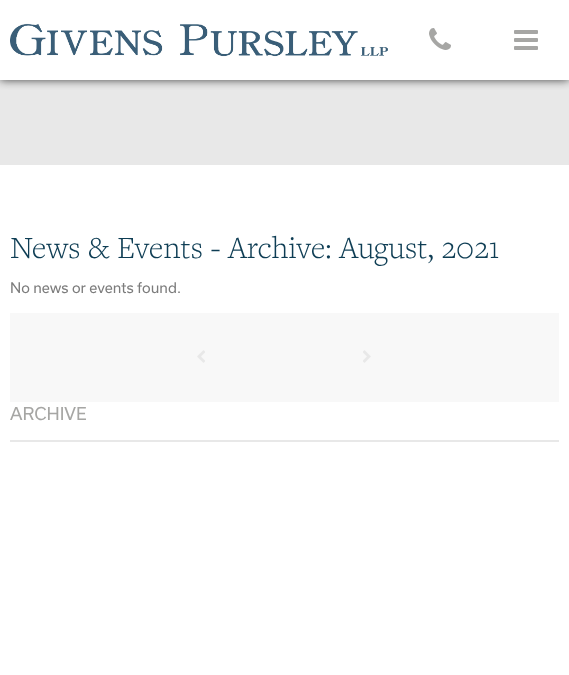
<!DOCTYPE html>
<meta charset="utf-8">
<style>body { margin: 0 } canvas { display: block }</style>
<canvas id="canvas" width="569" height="675"></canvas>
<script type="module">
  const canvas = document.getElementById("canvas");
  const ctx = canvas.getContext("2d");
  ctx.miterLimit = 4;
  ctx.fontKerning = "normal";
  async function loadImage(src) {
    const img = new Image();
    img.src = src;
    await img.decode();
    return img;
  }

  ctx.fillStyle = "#ffffff";
  ctx.fillRect(0, 0, 569, 675);
  ctx.fillStyle = "#e8e8e8";
  ctx.fillRect(0, 80, 569, 85);
  ctx.save();
  ctx.beginPath();
  ctx.rect(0, 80, 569, 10);
  ctx.clip();
  ctx.fillStyle = "rgba(10, 10, 10, 0.75)";
  ctx.filter = "blur(5px)";
  ctx.beginPath();
  ctx.rect(0, 0, 569, 80);
  ctx.fill();
  ctx.filter = "none";
  ctx.restore();
  ctx.drawImage(await loadImage("img1.png"), 10, 23, 378, 34);
  ctx.drawImage(await loadImage("img2.png"), 429, 28, 22, 22);
  ctx.drawImage(await loadImage("img3.png"), 514, 30, 24, 20);
  ctx.font = "300 32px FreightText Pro";
  ctx.fillStyle = "#0e3d54";
  ctx.fillText("News & Events - Archive: August, 2021", 10, 258);
  ctx.font = "14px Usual";
  ctx.fillStyle = "#7c7c7c";
  ctx.fillText("No news or events found.", 10, 293);
  ctx.fillStyle = "#f8f8f8";
  ctx.fillRect(10, 313, 549, 89);
  ctx.drawImage(await loadImage("img4.png"), 197, 350, 8, 13);
  ctx.drawImage(await loadImage("img5.png"), 363, 350, 8, 13);
  ctx.fillStyle = "#e8e8e8";
  ctx.fillRect(10, 440, 549, 2);
  ctx.font = "17px Usual";
  ctx.fillStyle = "#a6a6a4";
  ctx.fillText("ARCHIVE", 10, 420);
</script>
